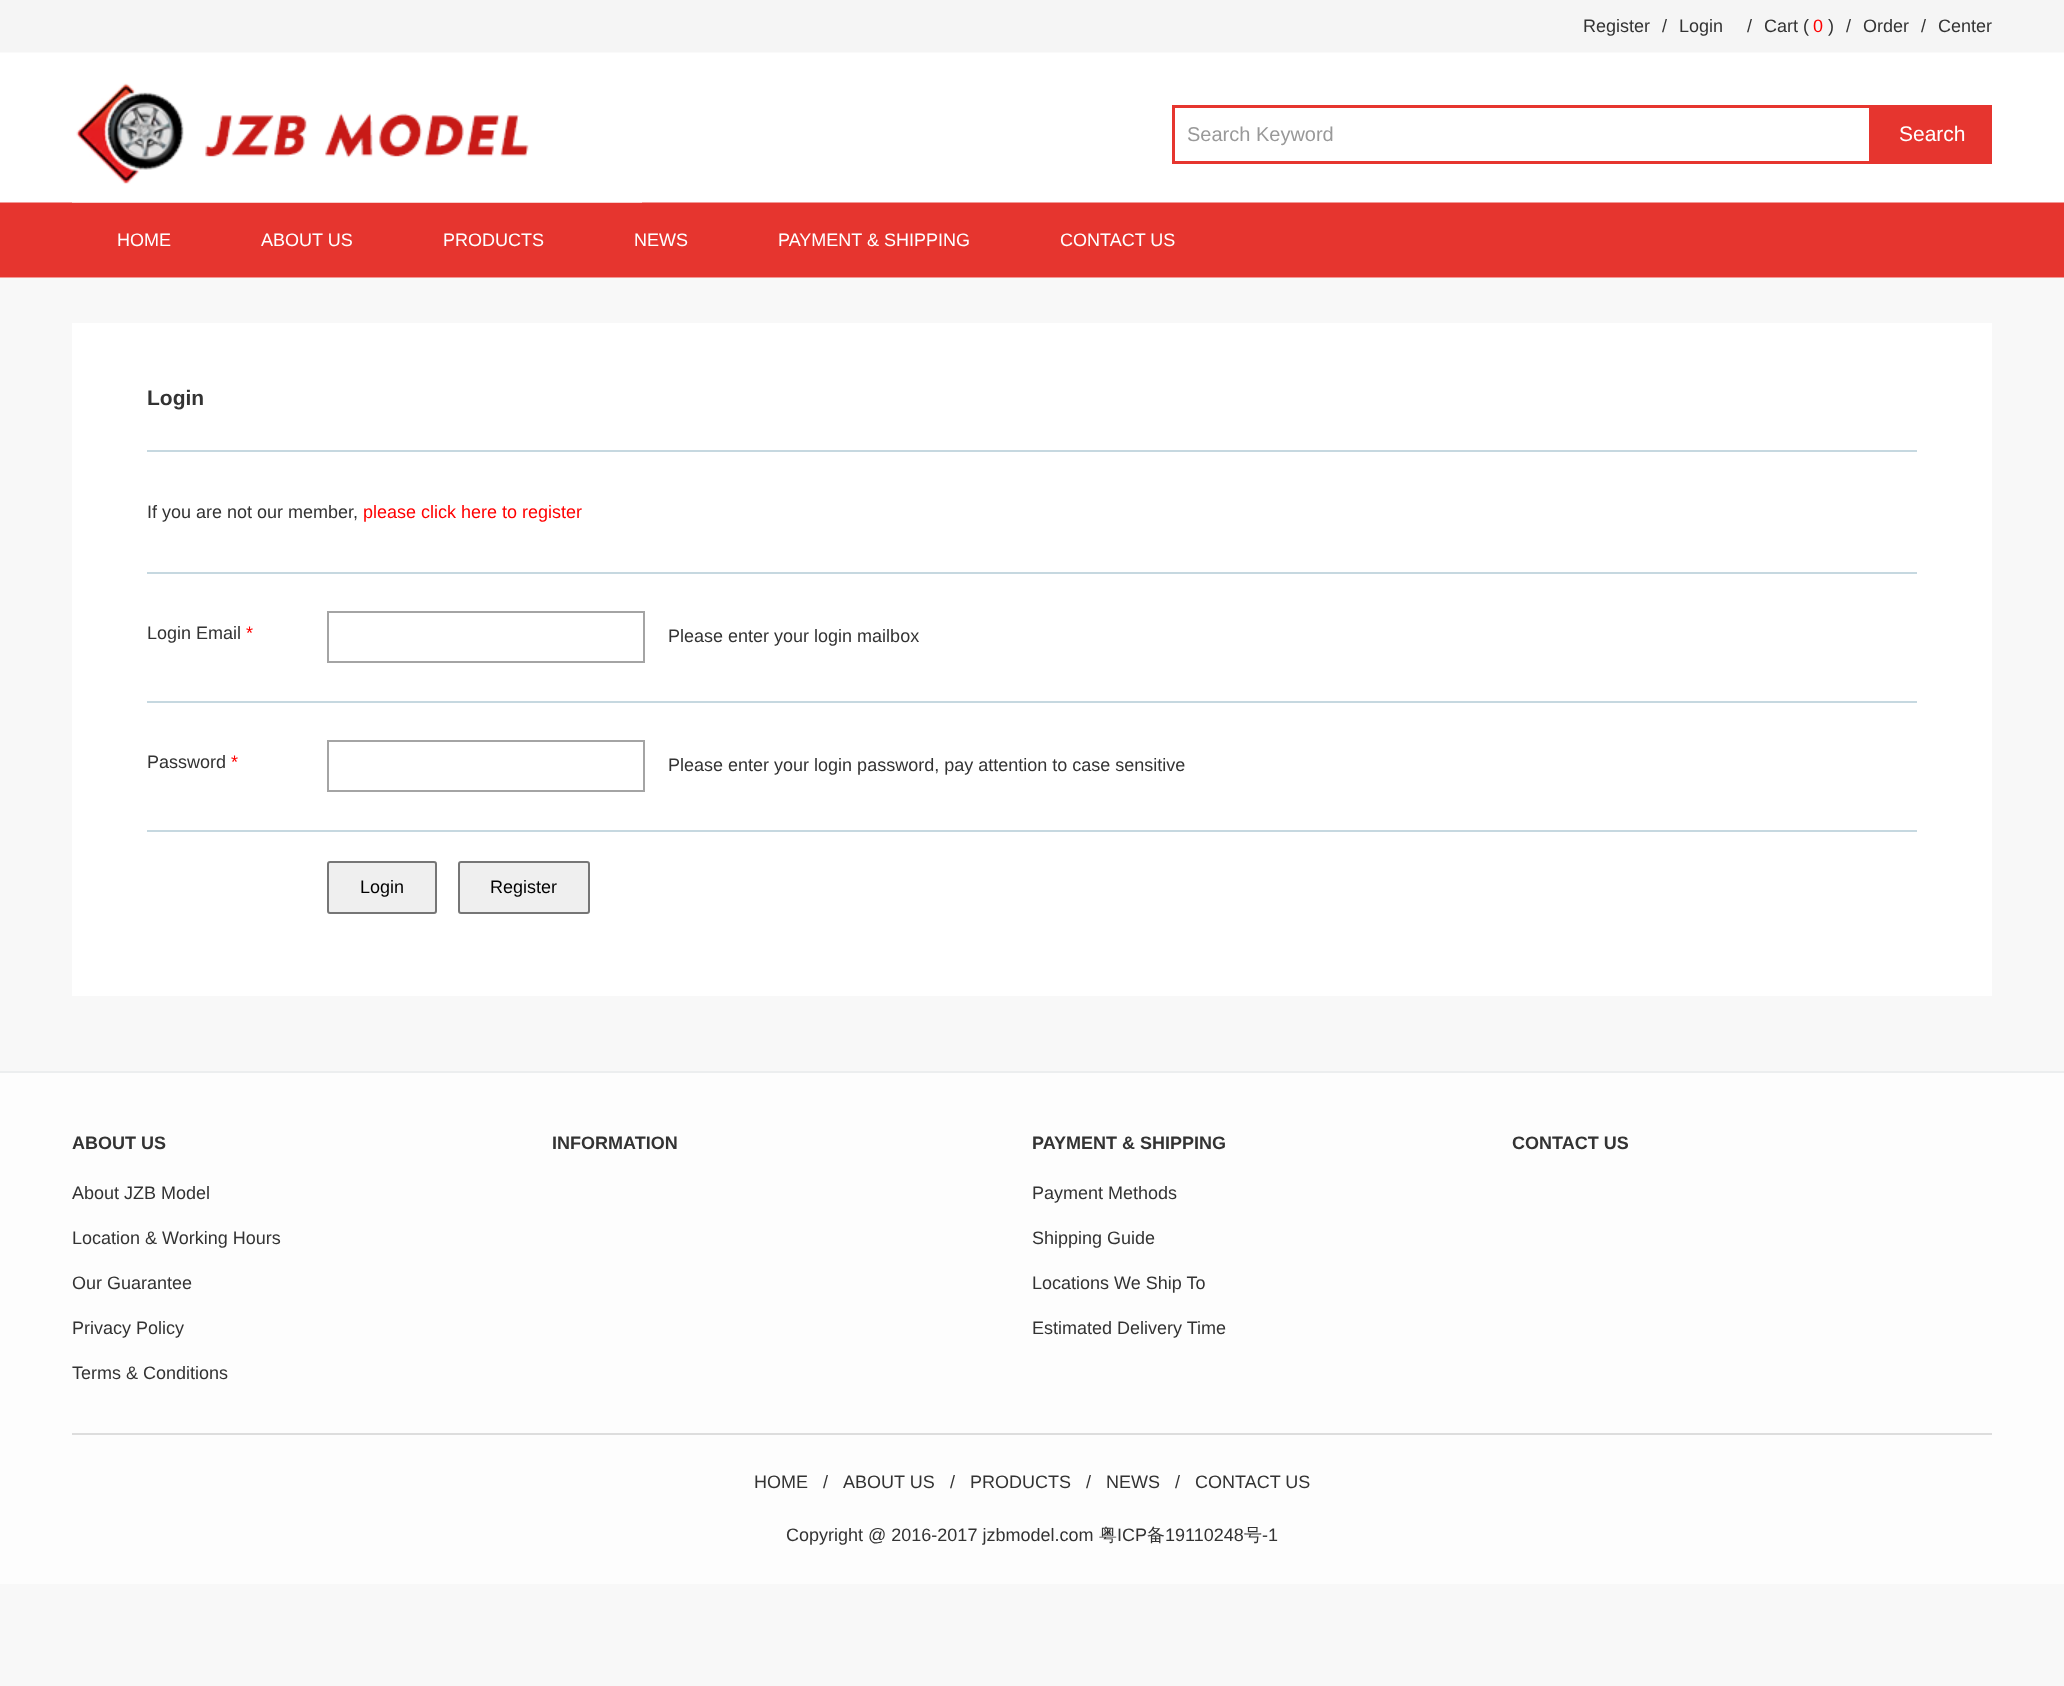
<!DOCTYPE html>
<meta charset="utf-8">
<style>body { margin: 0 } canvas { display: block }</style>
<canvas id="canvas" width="2064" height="1686"></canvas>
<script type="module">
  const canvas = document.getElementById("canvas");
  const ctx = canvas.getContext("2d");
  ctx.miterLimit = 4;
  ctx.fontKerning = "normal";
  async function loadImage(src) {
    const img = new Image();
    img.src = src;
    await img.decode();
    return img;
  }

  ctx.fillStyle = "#f8f8f8";
  ctx.fillRect(0, 0, 2064, 1686);
  ctx.fillStyle = "#ffffff";
  ctx.fillRect(0, 52, 2064, 226);
  ctx.drawImage(await loadImage("img1.png"), 0, 0, 2064, 278);
  ctx.font = "18px Liberation Sans";
  ctx.fillStyle = "#333333";
  ctx.fillText("Register", 1583, 32);
  ctx.fillText("/", 1662, 32);
  ctx.fillText("Login", 1679, 32);
  ctx.fillText("/", 1747, 32);
  ctx.fillText("Cart (", 1764, 32);
  ctx.fillStyle = "#ff0000";
  ctx.fillText("0", 1813, 32);
  ctx.fillStyle = "#333333";
  ctx.fillText(")", 1828, 32);
  ctx.fillText("/", 1846, 32);
  ctx.fillText("Order", 1863, 32);
  ctx.fillText("/", 1921, 32);
  ctx.fillText("Center", 1938, 32);
  ctx.drawImage(await loadImage("img2.png"), 72, 83, 570, 120);
  ctx.strokeStyle = "#e6352f";
  ctx.lineWidth = 3;
  ctx.strokeRect(1173.5, 106.5, 697, 56);
  ctx.font = "20px Liberation Sans";
  ctx.fillStyle = "#999999";
  ctx.fillText("Search Keyword", 1187, 141);
  ctx.fillStyle = "#e6352f";
  ctx.fillRect(1872, 105, 120, 59);
  ctx.font = "21px Liberation Sans";
  ctx.fillStyle = "#ffffff";
  ctx.fillText("Search", 1899, 141);
  ctx.font = "18px Liberation Sans";
  ctx.fillText("HOME", 117, 246);
  ctx.fillText("ABOUT US", 261, 246);
  ctx.fillText("PRODUCTS", 443, 246);
  ctx.fillText("NEWS", 634, 246);
  ctx.fillText("PAYMENT & SHIPPING", 778, 246);
  ctx.fillText("CONTACT US", 1060, 246);
  ctx.fillRect(72, 323, 1920, 673);
  ctx.fillStyle = "#c6d8e0";
  ctx.fillRect(147, 450, 1770, 2);
  ctx.font = "bold 21px Liberation Sans";
  ctx.fillStyle = "#333333";
  ctx.fillText("Login", 147, 405);
  ctx.fillStyle = "#c6d8e0";
  ctx.fillRect(147, 572, 1770, 2);
  ctx.font = "18px Liberation Sans";
  ctx.fillStyle = "#333333";
  ctx.fillText("If you are not our member,", 147, 518);
  ctx.fillStyle = "#ff0000";
  ctx.fillText("please click here to register", 363, 518);
  ctx.fillStyle = "#c6d8e0";
  ctx.fillRect(147, 701, 1770, 2);
  ctx.fillStyle = "#333333";
  ctx.fillText("Login Email", 147, 639);
  ctx.fillStyle = "#ff0000";
  ctx.fillText("*", 246, 639);
  ctx.strokeStyle = "#a4a4a4";
  ctx.lineWidth = 2;
  ctx.strokeRect(328, 612, 316, 50);
  ctx.fillStyle = "#333333";
  ctx.fillText("Please enter your login mailbox", 668, 642);
  ctx.fillStyle = "#c6d8e0";
  ctx.fillRect(147, 830, 1770, 2);
  ctx.fillStyle = "#333333";
  ctx.fillText("Password", 147, 768);
  ctx.fillStyle = "#ff0000";
  ctx.fillText("*", 231, 768);
  ctx.strokeRect(328, 741, 316, 50);
  ctx.fillStyle = "#333333";
  ctx.fillText("Please enter your login password, pay attention to case sensitive", 668, 771);
  ctx.fillStyle = "#efefef";
  ctx.beginPath();
  ctx.roundRect(328, 862, 108, 51, 2);
  ctx.fill();
  ctx.strokeStyle = "#767676";
  ctx.stroke();
  ctx.fillStyle = "#000000";
  ctx.fillText("Login", 360, 893);
  ctx.fillStyle = "#efefef";
  ctx.beginPath();
  ctx.roundRect(459, 862, 130, 51, 2);
  ctx.fill();
  ctx.stroke();
  ctx.fillStyle = "#000000";
  ctx.fillText("Register", 490, 893);
  ctx.fillStyle = "#fdfdfd";
  ctx.fillRect(0, 1073, 2064, 511);
  ctx.fillStyle = "#eceeef";
  ctx.fillRect(0, 1071, 2064, 2);
  ctx.font = "bold 18px Liberation Sans";
  ctx.fillStyle = "#333333";
  ctx.fillText("ABOUT US", 72, 1149);
  ctx.font = "18px Liberation Sans";
  ctx.fillText("About JZB Model", 72, 1199);
  ctx.fillText("Location & Working Hours", 72, 1244);
  ctx.fillText("Our Guarantee", 72, 1289);
  ctx.fillText("Privacy Policy", 72, 1334);
  ctx.fillText("Terms & Conditions", 72, 1379);
  ctx.font = "bold 18px Liberation Sans";
  ctx.fillText("INFORMATION", 552, 1149);
  ctx.fillText("PAYMENT & SHIPPING", 1032, 1149);
  ctx.font = "18px Liberation Sans";
  ctx.fillText("Payment Methods", 1032, 1199);
  ctx.fillText("Shipping Guide", 1032, 1244);
  ctx.fillText("Locations We Ship To", 1032, 1289);
  ctx.fillText("Estimated Delivery Time", 1032, 1334);
  ctx.font = "bold 18px Liberation Sans";
  ctx.fillText("CONTACT US", 1512, 1149);
  ctx.fillStyle = "#dddddd";
  ctx.fillRect(72, 1433, 1920, 2);
  ctx.font = "18px Liberation Sans";
  ctx.fillStyle = "#333333";
  ctx.fillText("HOME", 754, 1488);
  ctx.fillText("/", 823, 1488);
  ctx.fillText("ABOUT US", 843, 1488);
  ctx.fillText("/", 950, 1488);
  ctx.fillText("PRODUCTS", 970, 1488);
  ctx.fillText("/", 1086, 1488);
  ctx.fillText("NEWS", 1106, 1488);
  ctx.fillText("/", 1175, 1488);
  ctx.fillText("CONTACT US", 1195, 1488);
  ctx.fillText("Copyright @ 2016-2017 jzbmodel.com", 786, 1541);
  ctx.font = "500 18px WenQuanYi Zen Hei";
  ctx.fillText("粤", 1099, 1541);
  ctx.font = "18px Liberation Sans";
  ctx.fillText("ICP", 1117, 1541);
  ctx.font = "500 18px WenQuanYi Zen Hei";
  ctx.fillText("备", 1147, 1541);
  ctx.font = "18px Liberation Sans";
  ctx.fillText("19110248", 1165, 1541);
  ctx.font = "500 18px WenQuanYi Zen Hei";
  ctx.fillText("号", 1244, 1541);
  ctx.font = "18px Liberation Sans";
  ctx.fillText("-1", 1262, 1541);
</script>
